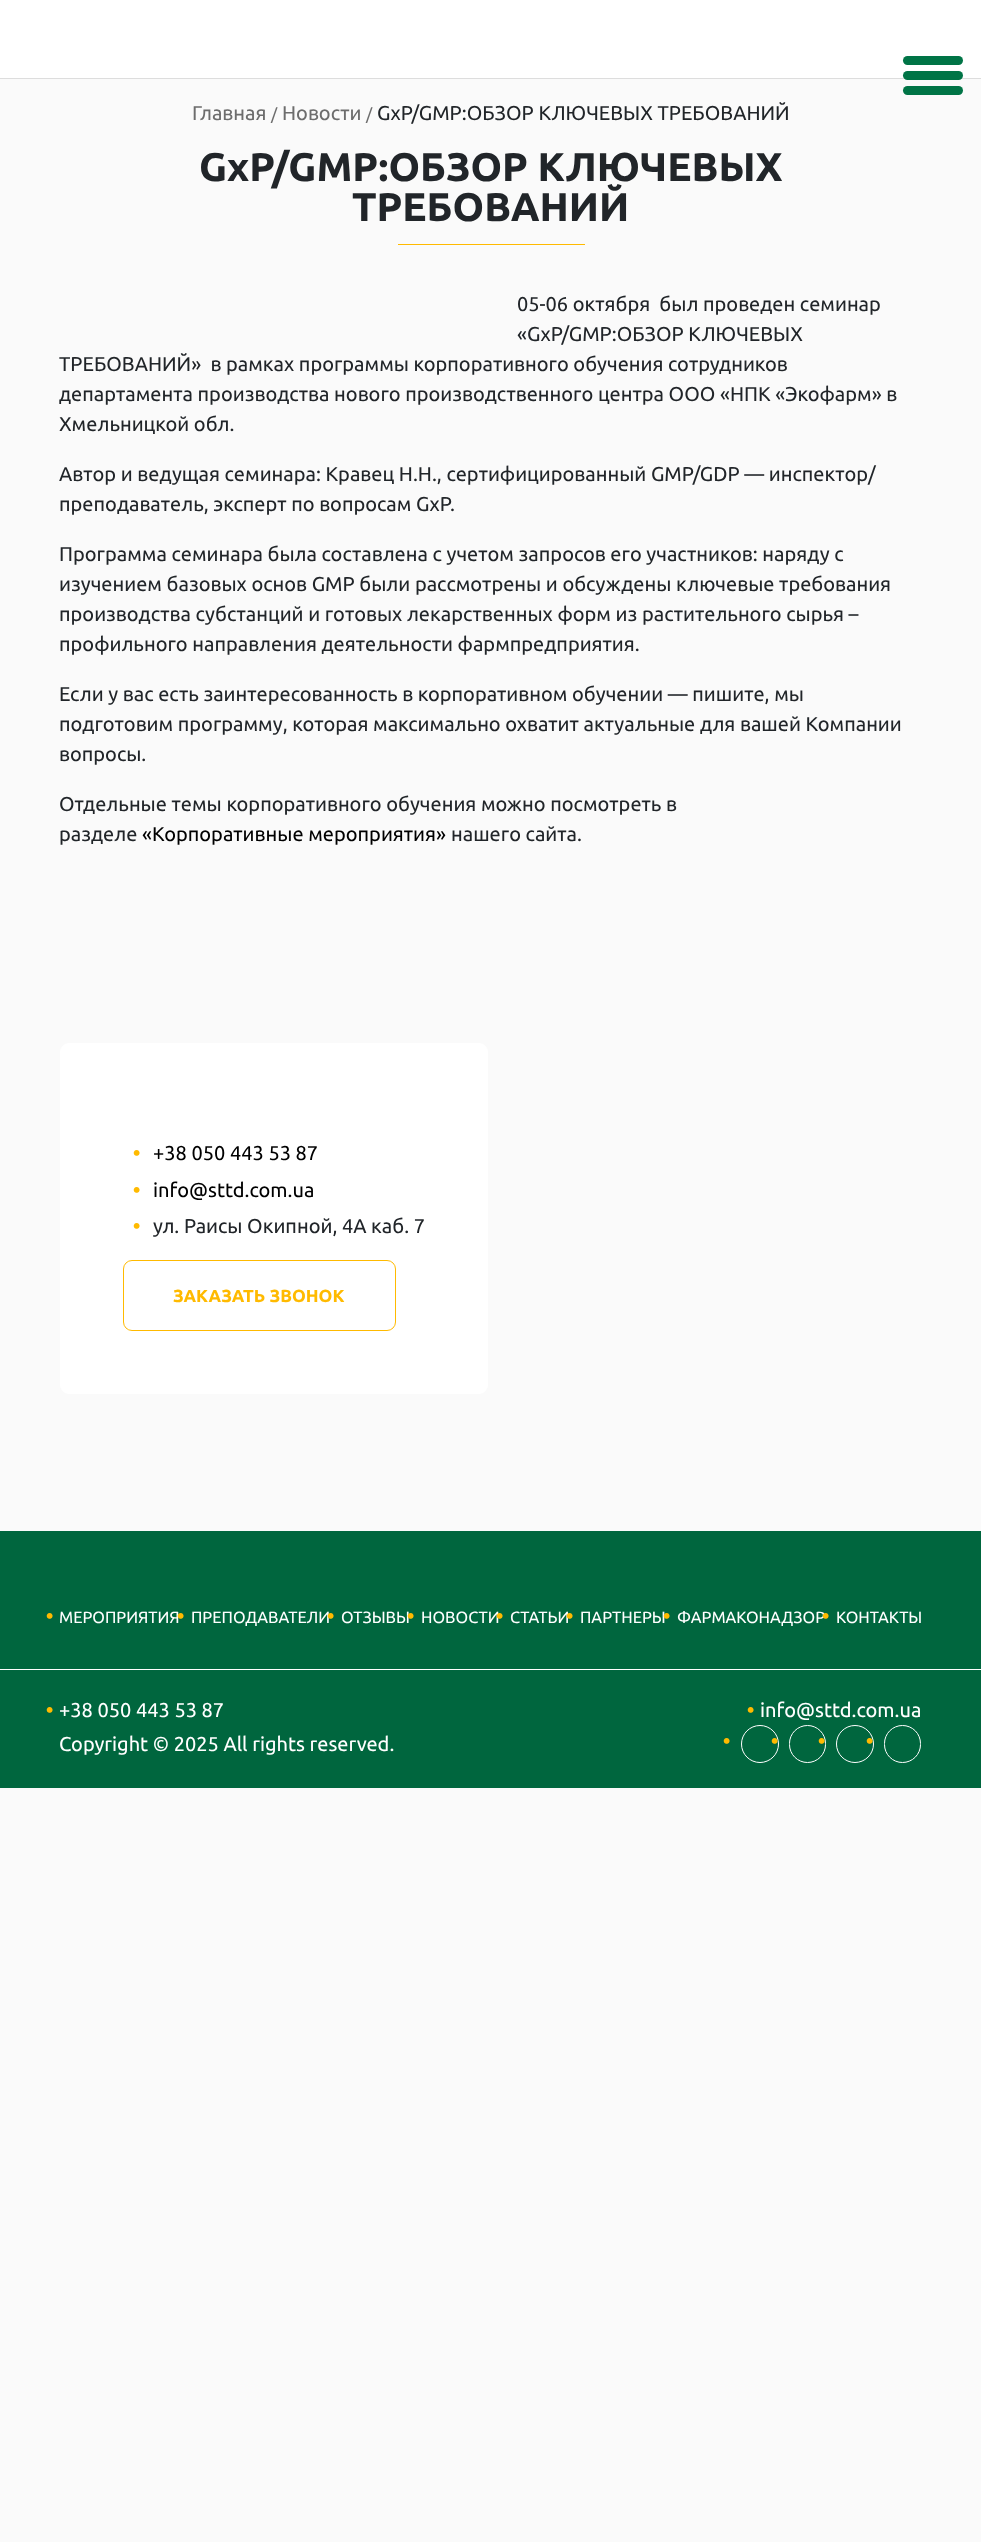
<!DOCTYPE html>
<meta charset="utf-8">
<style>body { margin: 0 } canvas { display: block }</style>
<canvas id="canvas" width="981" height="2542"></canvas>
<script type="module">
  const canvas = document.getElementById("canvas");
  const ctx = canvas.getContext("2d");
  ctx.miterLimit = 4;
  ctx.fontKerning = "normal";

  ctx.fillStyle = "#fafafa";
  ctx.fillRect(0, 0, 981, 2542);
  ctx.fillStyle = "#ffffff";
  ctx.fillRect(0, 0, 981, 78);
  ctx.fillStyle = "#007446";
  ctx.beginPath();
  ctx.roundRect(903, 56, 60, 9, 4.5);
  ctx.fill();
  ctx.fillStyle = "#dddddd";
  ctx.fillRect(0, 78, 981, 1);
  ctx.fillStyle = "#007446";
  ctx.beginPath();
  ctx.roundRect(903, 71, 60, 9, 4.5);
  ctx.fill();
  ctx.beginPath();
  ctx.roundRect(903, 86, 60, 9, 4.5);
  ctx.fill();
  ctx.font = "20px Ubuntu";
  ctx.fillStyle = "#6d6d6d";
  ctx.fillText("Главная", 192, 120);
  ctx.font = "16.25px Ubuntu";
  ctx.fillText("/", 271, 120);
  ctx.font = "20px Ubuntu";
  ctx.fillText("Новости", 282, 120);
  ctx.font = "16.25px Ubuntu";
  ctx.fillText("/", 366, 120);
  ctx.font = "20px Ubuntu";
  ctx.fillStyle = "#212529";
  ctx.fillText("GxP/GMP:ОБЗОР КЛЮЧЕВЫХ ТРЕБОВАНИЙ", 377, 120);
  ctx.font = "bold 40px Ubuntu";
  ctx.fillText("GxP/GMP:ОБЗОР КЛЮЧЕВЫХ", 199, 181);
  ctx.fillText("ТРЕБОВАНИЙ", 352, 221);
  ctx.fillStyle = "#ffba00";
  ctx.fillRect(398, 244, 187, 1);
  ctx.font = "20px Ubuntu";
  ctx.fillStyle = "#212529";
  ctx.fillText("05-06 октября  был проведен семинар", 517, 311);
  ctx.fillText("«GxP/GMP:ОБЗОР КЛЮЧЕВЫХ", 517, 341);
  ctx.fillText("ТРЕБОВАНИЙ»  в рамках программы корпоративного обучения сотрудников", 59, 371);
  ctx.fillText("департамента производства нового производственного центра ООО «НПК «Экофарм» в", 59, 401);
  ctx.fillText("Хмельницкой обл.", 59, 431);
  ctx.fillText("Автор и ведущая семинара: Кравец Н.Н., сертифицированный GMP/GDP — инспектор/", 59, 481);
  ctx.fillText("преподаватель, эксперт по вопросам GxP.", 59, 511);
  ctx.fillText("Программа семинара была составлена с учетом запросов его участников: наряду с", 59, 561);
  ctx.fillText("изучением базовых основ GMP были рассмотрены и обсуждены ключевые требования", 59, 591);
  ctx.fillText("производства субстанций и готовых лекарственных форм из растительного сырья –", 59, 621);
  ctx.fillText("профильного направления деятельности фармпредприятия.", 59, 651);
  ctx.fillText("Если у вас есть заинтересованность в корпоративном обучении — пишите, мы", 59, 701);
  ctx.fillText("подготовим программу, которая максимально охватит актуальные для вашей Компании", 59, 731);
  ctx.fillText("вопросы.", 59, 761);
  ctx.fillText("Отдельные темы корпоративного обучения можно посмотреть в", 59, 811);
  ctx.fillText("разделе", 59, 841);
  ctx.fillStyle = "#000000";
  ctx.fillText("«Корпоративные мероприятия»", 142, 841);
  ctx.fillStyle = "#212529";
  ctx.fillText("нашего сайта.", 451, 841);
  ctx.fillStyle = "#ffffff";
  ctx.beginPath();
  ctx.roundRect(60, 1043, 428, 351, 9);
  ctx.fill();
  ctx.font = "bold 20px Ubuntu";
  ctx.fillStyle = "#ffba00";
  ctx.fillText("•", 133, 1160);
  ctx.font = "20px Ubuntu";
  ctx.fillStyle = "#000000";
  ctx.fillText("+38 050 443 53 87", 153, 1160);
  ctx.font = "bold 20px Ubuntu";
  ctx.fillStyle = "#ffba00";
  ctx.fillText("•", 133, 1197);
  ctx.font = "20px Ubuntu";
  ctx.fillStyle = "#000000";
  ctx.fillText("info@sttd.com.ua", 153, 1197);
  ctx.font = "bold 20px Ubuntu";
  ctx.fillStyle = "#ffba00";
  ctx.fillText("•", 133, 1233);
  ctx.font = "20px Ubuntu";
  ctx.fillStyle = "#212529";
  ctx.fillText("ул. Раисы Окипной, 4А каб. 7", 153, 1233);
  ctx.beginPath();
  ctx.roundRect(123.5, 1260.5, 272, 70, 8.5);
  ctx.strokeStyle = "#ffba00";
  ctx.stroke();
  ctx.font = "bold 17.5px Ubuntu";
  ctx.fillStyle = "#ffba00";
  ctx.fillText("ЗАКАЗАТЬ ЗВОНОК", 173, 1302);
  ctx.fillStyle = "#00663e";
  ctx.fillRect(0, 1531, 981, 257);
  ctx.font = "bold 20px Ubuntu";
  ctx.fillStyle = "#ffba00";
  ctx.fillText("•", 46, 1623);
  ctx.font = "16.25px Ubuntu";
  ctx.fillStyle = "#ffffff";
  ctx.fillText("МЕРОПРИЯТИЯ", 59, 1623);
  ctx.font = "bold 20px Ubuntu";
  ctx.fillStyle = "#ffba00";
  ctx.fillText("•", 177, 1623);
  ctx.font = "16.25px Ubuntu";
  ctx.fillStyle = "#ffffff";
  ctx.fillText("ПРЕПОДАВАТЕЛИ", 191, 1623);
  ctx.font = "bold 20px Ubuntu";
  ctx.fillStyle = "#ffba00";
  ctx.fillText("•", 327, 1623);
  ctx.font = "16.25px Ubuntu";
  ctx.fillStyle = "#ffffff";
  ctx.fillText("ОТЗЫВЫ", 341, 1623);
  ctx.font = "bold 20px Ubuntu";
  ctx.fillStyle = "#ffba00";
  ctx.fillText("•", 407, 1623);
  ctx.font = "16.25px Ubuntu";
  ctx.fillStyle = "#ffffff";
  ctx.fillText("НОВОСТИ", 421, 1623);
  ctx.font = "bold 20px Ubuntu";
  ctx.fillStyle = "#ffba00";
  ctx.fillText("•", 496, 1623);
  ctx.font = "16.25px Ubuntu";
  ctx.fillStyle = "#ffffff";
  ctx.fillText("СТАТЬИ", 510, 1623);
  ctx.font = "bold 20px Ubuntu";
  ctx.fillStyle = "#ffba00";
  ctx.fillText("•", 566, 1623);
  ctx.font = "16.25px Ubuntu";
  ctx.fillStyle = "#ffffff";
  ctx.fillText("ПАРТНЕРЫ", 580, 1623);
  ctx.font = "bold 20px Ubuntu";
  ctx.fillStyle = "#ffba00";
  ctx.fillText("•", 663, 1623);
  ctx.font = "16.25px Ubuntu";
  ctx.fillStyle = "#ffffff";
  ctx.fillText("ФАРМАКОНАДЗОР", 677, 1623);
  ctx.font = "bold 20px Ubuntu";
  ctx.fillStyle = "#ffba00";
  ctx.fillText("•", 822, 1623);
  ctx.font = "16.25px Ubuntu";
  ctx.fillStyle = "#ffffff";
  ctx.fillText("КОНТАКТЫ", 836, 1623);
  ctx.fillRect(0, 1669, 981, 1);
  ctx.font = "bold 20px Ubuntu";
  ctx.fillStyle = "#ffba00";
  ctx.fillText("•", 46, 1717);
  ctx.font = "20px Ubuntu";
  ctx.fillStyle = "#ffffff";
  ctx.fillText("+38 050 443 53 87", 59, 1717);
  ctx.font = "bold 20px Ubuntu";
  ctx.fillStyle = "#ffba00";
  ctx.fillText("•", 747, 1717);
  ctx.font = "20px Ubuntu";
  ctx.fillStyle = "#ffffff";
  ctx.fillText("info@sttd.com.ua", 760, 1717);
  ctx.fillText("Copyright © 2025 All rights reserved.", 59, 1751);
  ctx.beginPath();
  ctx.arc(760, 1744, 18.5, 0, Math.PI * 2);
  ctx.strokeStyle = "#ffffff";
  ctx.stroke();
  ctx.font = "bold 20px Ubuntu";
  ctx.fillStyle = "#ffba00";
  ctx.fillText("•", 723, 1748);
  ctx.beginPath();
  ctx.roundRect(789.5, 1725.5, 36, 37, 18);
  ctx.stroke();
  ctx.fillText("•", 771, 1748);
  ctx.beginPath();
  ctx.arc(855, 1744, 18.5, 0, Math.PI * 2);
  ctx.stroke();
  ctx.fillText("•", 818, 1748);
  ctx.beginPath();
  ctx.roundRect(884.5, 1725.5, 36, 37, 18);
  ctx.stroke();
  ctx.fillText("•", 866, 1748);
</script>
